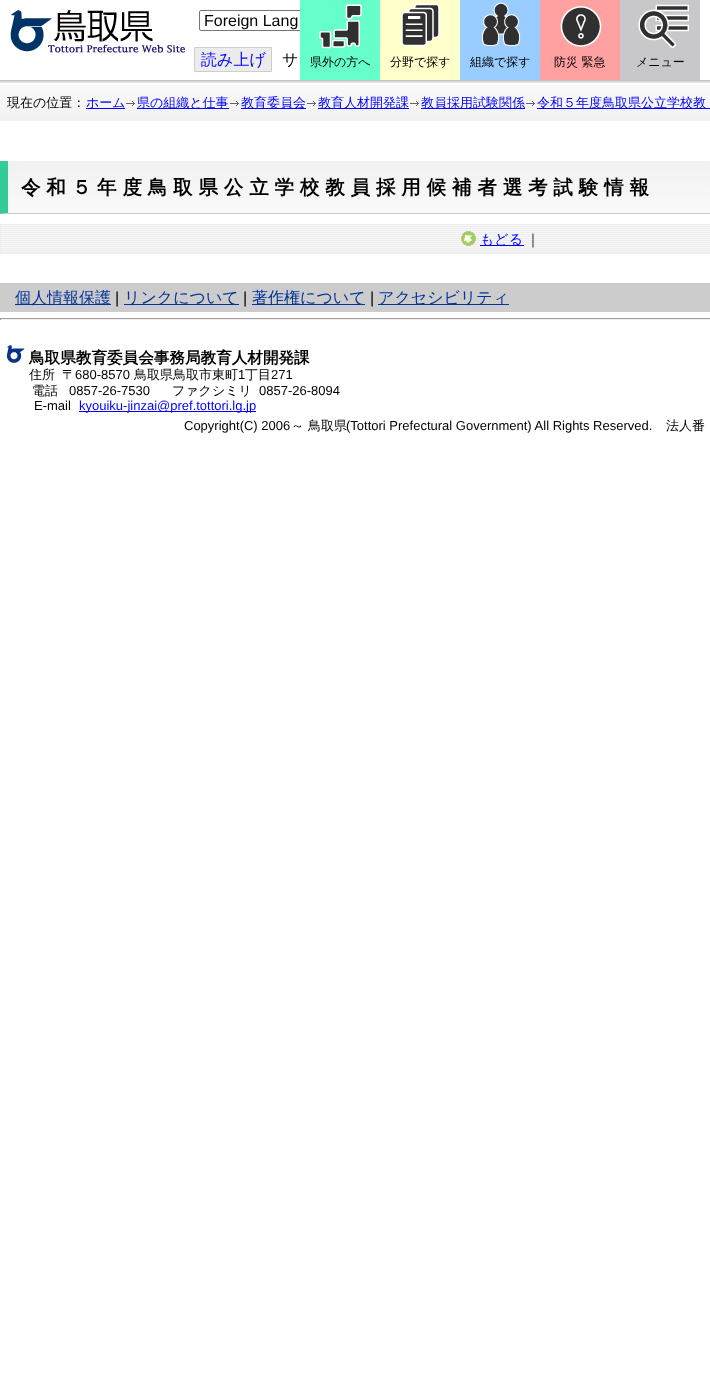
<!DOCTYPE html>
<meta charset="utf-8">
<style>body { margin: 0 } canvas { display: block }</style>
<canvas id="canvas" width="710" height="1387"></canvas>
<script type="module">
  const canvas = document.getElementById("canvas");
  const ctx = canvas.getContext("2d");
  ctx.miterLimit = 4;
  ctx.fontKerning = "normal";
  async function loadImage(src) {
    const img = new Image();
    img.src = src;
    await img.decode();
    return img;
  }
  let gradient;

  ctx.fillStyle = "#ffffff";
  ctx.fillRect(0, 0, 710, 1387);
  gradient = ctx.createLinearGradient(500, 85, 500, 121);
  gradient.addColorStop(0, "#fafafa");
  gradient.addColorStop(1, "#f1f1f1");
  ctx.fillStyle = gradient;
  ctx.fillRect(0, 85, 710, 36);
  ctx.save();
  ctx.beginPath();
  ctx.rect(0, 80, 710, 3);
  ctx.clip();
  ctx.fillStyle = "rgba(0, 0, 0, 0.1)";
  ctx.filter = "blur(2.5px)";
  ctx.beginPath();
  ctx.rect(-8, 1, 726, 80);
  ctx.fill();
  ctx.filter = "none";
  ctx.filter = "blur(2.5px)";
  ctx.beginPath();
  ctx.rect(-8, 1, 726, 80);
  ctx.fill();
  ctx.filter = "none";
  ctx.filter = "blur(2.5px)";
  ctx.beginPath();
  ctx.rect(-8, 1, 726, 80);
  ctx.fill();
  ctx.filter = "none";
  ctx.filter = "blur(2.5px)";
  ctx.beginPath();
  ctx.rect(-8, 1, 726, 80);
  ctx.fill();
  ctx.filter = "none";
  ctx.restore();
  ctx.drawImage(await loadImage("img1.png"), 10, 10, 175, 43);
  ctx.beginPath();
  ctx.roundRect(199.5, 10.5, 159, 20, 1.5);
  ctx.strokeStyle = "#767676";
  ctx.stroke();
  ctx.font = "16px Liberation Sans";
  ctx.fillStyle = "#000000";
  ctx.fillText("Foreign Lang", 204, 26);
  ctx.fillStyle = "#ececec";
  ctx.beginPath();
  ctx.rect(194.5, 47.5, 77, 24);
  ctx.fill();
  ctx.strokeStyle = "#cecece";
  ctx.stroke();
  ctx.font = "500 16px WenQuanYi Zen Hei";
  ctx.fillStyle = "#0000ff";
  ctx.fillText("読み上げ", 201, 65);
  ctx.fillStyle = "#000000";
  ctx.fillText("サ", 282, 65);
  ctx.fillStyle = "#66ffcc";
  ctx.fillRect(300, 0, 80, 80);
  ctx.drawImage(await loadImage("img2.png"), 319, 4, 43, 45);
  ctx.font = "500 12px WenQuanYi Zen Hei";
  ctx.fillStyle = "#000000";
  ctx.fillText("県外の方へ", 310, 66);
  ctx.fillStyle = "#ffffcc";
  ctx.fillRect(380, 0, 80, 80);
  ctx.drawImage(await loadImage("img3.png"), 401, 3, 39, 44);
  ctx.fillStyle = "#000000";
  ctx.fillText("分野で探す", 390, 66);
  ctx.fillStyle = "#99ccff";
  ctx.fillRect(460, 0, 80, 80);
  ctx.drawImage(await loadImage("img4.png"), 482, 2, 39, 44);
  ctx.fillStyle = "#000000";
  ctx.fillText("組織で探す", 470, 66);
  ctx.fillStyle = "#ffa1a1";
  ctx.fillRect(540, 0, 80, 80);
  ctx.drawImage(await loadImage("img5.png"), 560, 6, 42, 41);
  ctx.fillStyle = "#000000";
  ctx.fillText("防災 緊急", 554, 66);
  ctx.fillStyle = "#c8c8cb";
  ctx.fillRect(620, 0, 80, 80);
  ctx.drawImage(await loadImage("img6.png"), 638, 4, 51, 44);
  ctx.fillStyle = "#000000";
  ctx.fillText("メニュー", 636, 66);
  ctx.font = "500 13px WenQuanYi Zen Hei";
  ctx.fillText("現在の位置：", 7, 107);
  ctx.fillStyle = "#0000ff";
  ctx.fillRect(86, 108, 39, 1);
  ctx.fillText("ホーム", 86, 107);
  ctx.drawImage(await loadImage("img7.png"), 126, 101, 9, 5);
  ctx.fillRect(137, 108, 92, 1);
  ctx.fillText("県の組織と仕事", 137, 107);
  ctx.drawImage(await loadImage("img7.png"), 230, 101, 9, 5);
  ctx.fillRect(241, 108, 65, 1);
  ctx.fillText("教育委員会", 241, 107);
  ctx.drawImage(await loadImage("img7.png"), 307, 101, 9, 5);
  ctx.fillRect(318, 108, 91, 1);
  ctx.fillText("教育人材開発課", 318, 107);
  ctx.drawImage(await loadImage("img7.png"), 410, 101, 9, 5);
  ctx.fillRect(421, 108, 104, 1);
  ctx.fillText("教員採用試験関係", 421, 107);
  ctx.drawImage(await loadImage("img7.png"), 526, 101, 9, 5);
  ctx.fillRect(537, 108, 173, 1);
  ctx.fillText("令和５年度鳥取県公立学校教", 537, 107);
  gradient = ctx.createLinearGradient(504, 161, 504, 213);
  gradient.addColorStop(0, "#f1f1f1");
  gradient.addColorStop(1, "#fafafa");
  ctx.fillStyle = gradient;
  ctx.fillRect(8, 161, 702, 52);
  ctx.fillStyle = "#cccccc";
  ctx.beginPath();
  ctx.moveTo(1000, 214);
  ctx.lineTo(0, 214);
  ctx.lineTo(8, 213);
  ctx.lineTo(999, 213);
  ctx.closePath();
  ctx.fill();
  ctx.fillStyle = "#33cc99";
  ctx.beginPath();
  ctx.moveTo(0, 214);
  ctx.lineTo(0, 161);
  ctx.lineTo(8, 161);
  ctx.lineTo(8, 213);
  ctx.closePath();
  ctx.fill();
  ctx.letterSpacing = "5.85px";
  ctx.font = "bold 19.5px WenQuanYi Zen Hei";
  ctx.fillStyle = "#000000";
  ctx.fillText("令和５年度鳥取県公立学校教員採用候補者選考試験情報", 21, 194);
  ctx.drawImage(await loadImage("img8.png"), 1, 225, 709, 28);
  ctx.strokeStyle = "#eeeeee";
  ctx.strokeRect(0.5, 224.5, 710, 29);
  ctx.drawImage(await loadImage("img9.png"), 461, 231, 15, 15);
  ctx.fillStyle = "#0000ff";
  ctx.fillRect(480, 245, 44, 1);
  ctx.letterSpacing = "0px";
  ctx.font = "500 14px WenQuanYi Zen Hei";
  ctx.fillText("もどる", 480, 244);
  ctx.fillStyle = "#000000";
  ctx.fillText("｜", 526, 244);
  ctx.fillStyle = "#cccccc";
  ctx.fillRect(0, 283, 710, 29);
  ctx.fillStyle = "#003399";
  ctx.fillRect(15, 304, 96, 1);
  ctx.font = "500 16px WenQuanYi Zen Hei";
  ctx.fillText("個人情報保護", 15, 303);
  ctx.font = "16px Liberation Sans";
  ctx.fillStyle = "#000000";
  ctx.fillText("|", 115, 303);
  ctx.fillStyle = "#003399";
  ctx.fillRect(124, 304, 115, 1);
  ctx.font = "500 16px WenQuanYi Zen Hei";
  ctx.fillText("リンクについて", 124, 303);
  ctx.font = "16px Liberation Sans";
  ctx.fillStyle = "#000000";
  ctx.fillText("|", 243, 303);
  ctx.fillStyle = "#003399";
  ctx.fillRect(252, 304, 113, 1);
  ctx.font = "500 16px WenQuanYi Zen Hei";
  ctx.fillText("著作権について", 252, 303);
  ctx.font = "16px Liberation Sans";
  ctx.fillStyle = "#000000";
  ctx.fillText("|", 370, 303);
  ctx.fillStyle = "#003399";
  ctx.fillRect(378, 304, 131, 1);
  ctx.font = "500 16px WenQuanYi Zen Hei";
  ctx.fillText("アクセシビリティ", 378, 303);
  ctx.fillStyle = "#9f9f9f";
  ctx.fillRect(0, 318, 710, 1);
  ctx.fillStyle = "#eeeeee";
  ctx.fillRect(0, 319, 710, 1);
  ctx.fillStyle = "#9f9f9f";
  ctx.fillRect(0, 318, 1, 2);
  ctx.drawImage(await loadImage("img10.png"), 7, 345, 18, 18);
  ctx.font = "bold 15.6px WenQuanYi Zen Hei";
  ctx.fillStyle = "#000000";
  ctx.fillText("鳥取県教育委員会事務局教育人材開発課", 29, 363);
  ctx.font = "500 13px WenQuanYi Zen Hei";
  ctx.fillText("住所", 29, 379);
  ctx.fillText("〒", 62, 379);
  ctx.font = "13px Liberation Sans";
  ctx.fillText("680-8570", 75, 379);
  ctx.font = "500 13px WenQuanYi Zen Hei";
  ctx.fillText("鳥取県鳥取市東町", 134, 379);
  ctx.font = "13px Liberation Sans";
  ctx.fillText("1", 238, 379);
  ctx.font = "500 13px WenQuanYi Zen Hei";
  ctx.fillText("丁目", 245, 379);
  ctx.font = "13px Liberation Sans";
  ctx.fillText("271", 271, 379);
  ctx.font = "500 13px WenQuanYi Zen Hei";
  ctx.fillText("電話", 32, 395);
  ctx.font = "13px Liberation Sans";
  ctx.fillText("0857-26-7530", 69, 395);
  ctx.font = "500 13px WenQuanYi Zen Hei";
  ctx.fillText("ファクシミリ", 172, 395);
  ctx.font = "13px Liberation Sans";
  ctx.fillText("0857-26-8094", 259, 395);
  ctx.fillText("E-mail", 34, 410);
  ctx.fillStyle = "#0000ff";
  ctx.fillRect(79, 411, 177, 1);
  ctx.fillText("kyouiku-jinzai@pref.tottori.lg.jp", 79, 410);
  ctx.fillStyle = "#000000";
  ctx.fillText("Copyright(C) 2006", 184, 430);
  ctx.font = "500 13px WenQuanYi Zen Hei";
  ctx.fillText("～ 鳥取県", 291, 430);
  ctx.font = "13px Liberation Sans";
  ctx.fillText("(Tottori Prefectural Government) All Rights Reserved.", 346, 430);
  ctx.font = "500 13px WenQuanYi Zen Hei";
  ctx.fillText("法人番", 666, 430);
</script>
